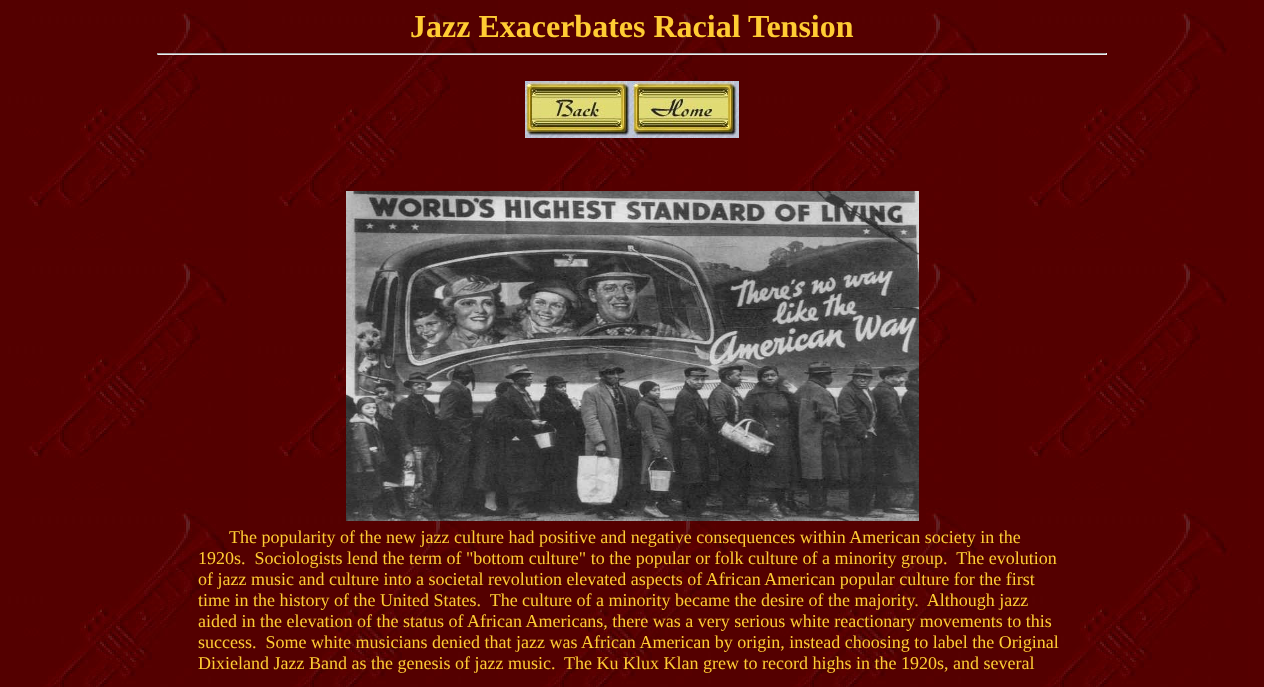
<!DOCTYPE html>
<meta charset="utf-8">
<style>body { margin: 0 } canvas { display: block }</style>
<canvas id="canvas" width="1264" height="687"></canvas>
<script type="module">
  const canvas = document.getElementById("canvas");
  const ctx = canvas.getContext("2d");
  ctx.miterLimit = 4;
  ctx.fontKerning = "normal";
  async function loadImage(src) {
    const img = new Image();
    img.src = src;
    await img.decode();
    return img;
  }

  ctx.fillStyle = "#ffffff";
  ctx.fillRect(0, 0, 1264, 687);
  ctx.drawImage(await loadImage("img1.png"), 0, 0, 1264, 687);
  ctx.font = "bold 32px Liberation Serif";
  ctx.fillStyle = "#ffcc33";
  ctx.fillText("Jazz Exacerbates Racial Tension", 410, 37);
  ctx.fillStyle = "#9f9f9f";
  ctx.fillRect(157, 53, 950, 1);
  ctx.fillStyle = "#eeeeee";
  ctx.fillRect(1106, 53, 1, 2);
  ctx.fillRect(157, 54, 950, 1);
  ctx.fillStyle = "#9f9f9f";
  ctx.fillRect(157, 53, 1, 2);
  ctx.drawImage(await loadImage("img2.png"), 525, 81, 107, 57);
  ctx.drawImage(await loadImage("img3.png"), 632, 81, 107, 57);
  ctx.drawImage(await loadImage("img4.png"), 346, 191, 573, 330);
  ctx.font = "18px Liberation Serif";
  ctx.fillStyle = "#ffcc33";
  ctx.fillText("The popularity of the new jazz culture had positive and negative consequences within American society in the", 229, 543);
  ctx.fillText("1920s.  Sociologists lend the term of \"bottom culture\" to the popular or folk culture of a minority group.  The evolution", 198, 564);
  ctx.fillText("of jazz music and culture into a societal revolution elevated aspects of African American popular culture for the first", 198, 585);
  ctx.fillText("time in the history of the United States.  The culture of a minority became the desire of the majority.  Although jazz", 198, 606);
  ctx.fillText("aided in the elevation of the status of African Americans, there was a very serious white reactionary movements to this", 198, 627);
  ctx.fillText("success.  Some white musicians denied that jazz was African American by origin, instead choosing to label the Original", 198, 648);
  ctx.fillText("Dixieland Jazz Band as the genesis of jazz music.  The Ku Klux Klan grew to record highs in the 1920s, and several", 198, 669);
</script>
